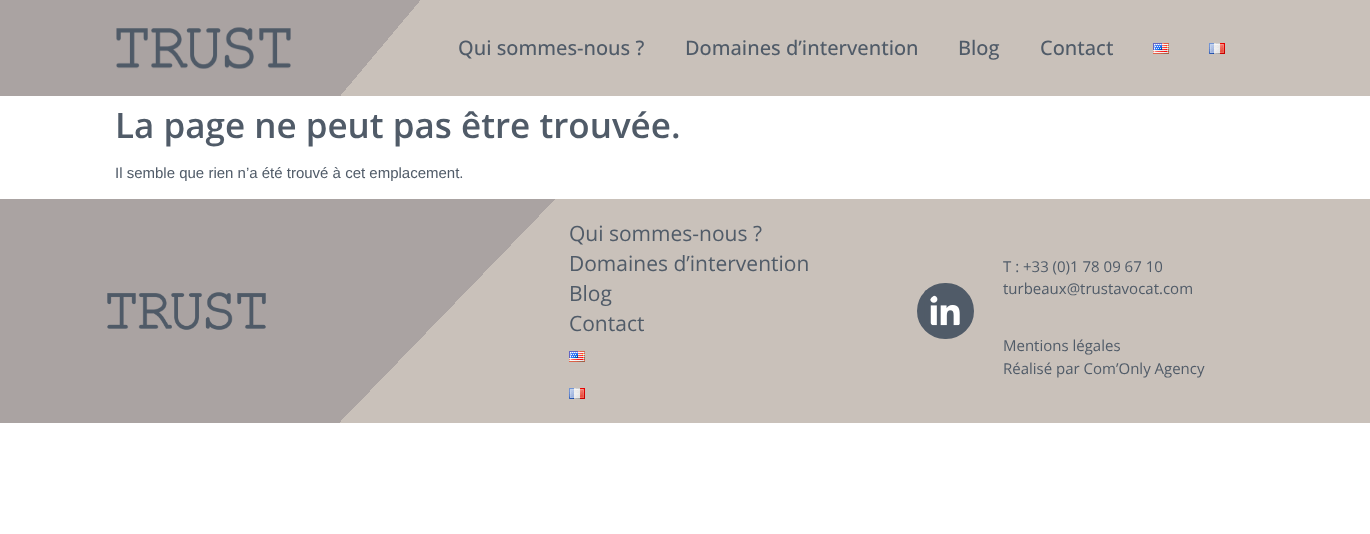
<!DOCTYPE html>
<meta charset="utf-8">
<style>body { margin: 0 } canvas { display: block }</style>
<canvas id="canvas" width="1370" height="534"></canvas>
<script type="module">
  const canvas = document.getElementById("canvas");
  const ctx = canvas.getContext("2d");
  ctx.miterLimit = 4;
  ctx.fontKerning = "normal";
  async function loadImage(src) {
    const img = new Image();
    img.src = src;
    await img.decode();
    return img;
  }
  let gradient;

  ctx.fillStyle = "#ffffff";
  ctx.fillRect(0, 0, 1370, 534);
  gradient = ctx.createLinearGradient(1111, 405, 259, -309);
  gradient.addColorStop(0.71, "#c9c1ba");
  gradient.addColorStop(0.71, "#aaa3a2");
  ctx.fillStyle = gradient;
  ctx.fillRect(0, 0, 1370, 96);
  ctx.drawImage(await loadImage("img1.png"), 116, 27, 175, 42);
  ctx.font = "500 20px Open Sans";
  ctx.fillStyle = "#505b68";
  ctx.fillText("Qui sommes-nous ?", 458, 55);
  ctx.fillText("Domaines d’intervention", 685, 55);
  ctx.fillText("Blog", 958, 55);
  ctx.fillText("Contact", 1040, 55);
  ctx.drawImage(await loadImage("img2.png"), 1153, 43, 16, 11);
  ctx.drawImage(await loadImage("img3.png"), 1209, 43, 16, 11);
  ctx.font = "600 35px Open Sans";
  ctx.fillText("La page ne peut pas être trouvée.", 115, 138);
  ctx.font = "15px Liberation Sans";
  ctx.fillText("Il semble que rien n’a été trouvé à cet emplacement.", 115, 178);
  gradient = ctx.createLinearGradient(275, -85, 1095, 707);
  gradient.addColorStop(0.35, "#aaa3a2");
  gradient.addColorStop(0.35, "#c9c1ba");
  ctx.fillStyle = gradient;
  ctx.fillRect(0, 199, 1370, 224);
  ctx.drawImage(await loadImage("img4.png"), 107, 292, 159, 38);
  ctx.font = "21px Open Sans";
  ctx.fillStyle = "#505b68";
  ctx.fillText("Qui sommes-nous ?", 569, 241);
  ctx.fillText("Domaines d’intervention", 569, 271);
  ctx.fillText("Blog", 569, 301);
  ctx.fillText("Contact", 569, 331);
  ctx.drawImage(await loadImage("img2.png"), 569, 351, 16, 11);
  ctx.drawImage(await loadImage("img3.png"), 569, 388, 16, 11);
  ctx.fillStyle = "#ffffff";
  ctx.beginPath();
  ctx.roundRect(921.5, 287.5, 48, 47, 23.5);
  ctx.fill();
  ctx.strokeStyle = "#505b68";
  ctx.lineWidth = 9;
  ctx.stroke();
  ctx.drawImage(await loadImage("img5.png"), 924, 289, 41, 41);
  ctx.font = "15px Open Sans";
  ctx.fillStyle = "#505b68";
  ctx.fillText("T : +33 (0)1 78 09 67 10", 1003, 272);
  ctx.fillText("turbeaux@trustavocat.com", 1003, 294);
  ctx.fillText("Mentions légales", 1003, 351);
  ctx.fillText("Réalisé par Com’Only Agency", 1003, 374);
</script>
